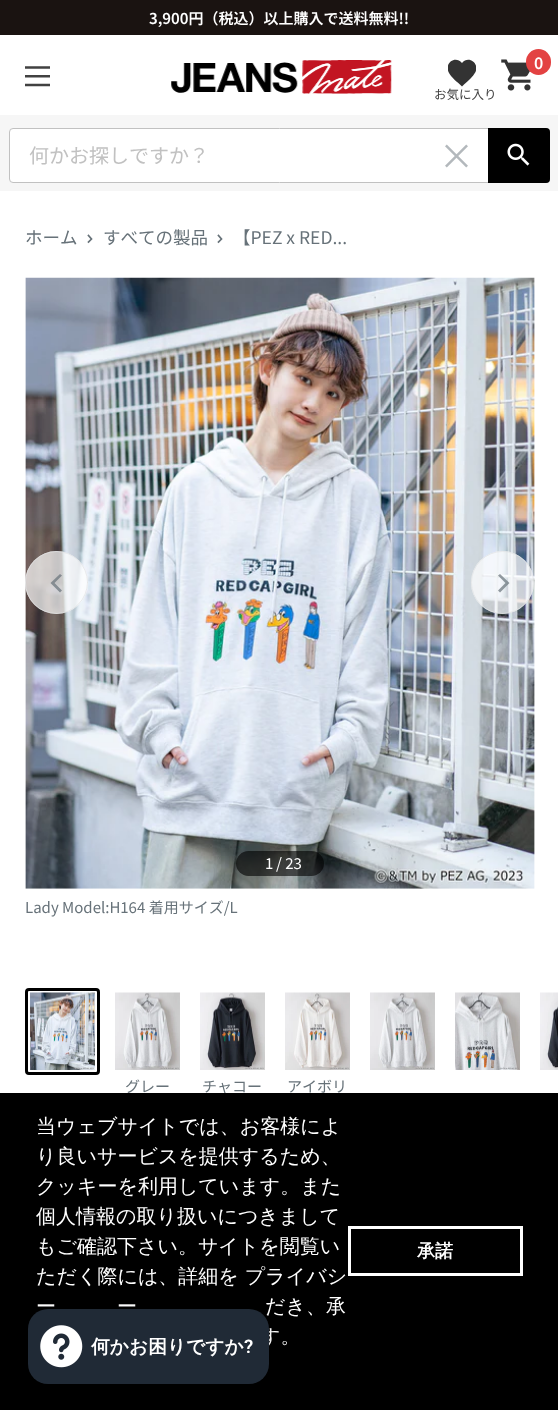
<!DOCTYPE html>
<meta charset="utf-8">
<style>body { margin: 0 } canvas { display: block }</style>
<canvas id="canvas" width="558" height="1410"></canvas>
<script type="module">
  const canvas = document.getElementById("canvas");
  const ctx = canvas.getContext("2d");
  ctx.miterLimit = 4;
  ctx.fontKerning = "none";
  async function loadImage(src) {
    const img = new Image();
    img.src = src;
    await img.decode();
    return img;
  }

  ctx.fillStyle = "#ffffff";
  ctx.fillRect(0, 0, 558, 1410);
  ctx.fillStyle = "#1a1311";
  ctx.fillRect(0, 0, 558, 35);
  ctx.font = "600 15px Noto Sans JP";
  ctx.fillStyle = "#ffffff";
  ctx.fillText("3,900円（税込）以上購入で送料無料!!", 149, 24);
  ctx.drawImage(await loadImage("img1.png"), 25, 66, 25, 21);
  ctx.drawImage(await loadImage("img2.png"), 171, 60, 221, 34);
  ctx.drawImage(await loadImage("img3.png"), 501, 59, 30, 32);
  ctx.fillStyle = "#e34242";
  ctx.beginPath();
  ctx.roundRect(526, 49, 25, 26, 12.5);
  ctx.fill();
  ctx.font = "600 16px Noto Sans JP";
  ctx.fillStyle = "#ffffff";
  ctx.fillText("0", 534, 69);
  ctx.save();
  ctx.beginPath();
  ctx.rect(448, 59, 28, 29);
  ctx.clip();
  ctx.fillStyle = "#333333";
  ctx.beginPath();
  ctx.moveTo(462, 86.5);
  ctx.bezierCurveTo(457.5, 82, 451, 77.5, 448.5, 72);
  ctx.bezierCurveTo(444.5, 62.5, 455.5, 55.5, 462, 63);
  ctx.bezierCurveTo(468, 55.5, 479.5, 62.5, 475.5, 72);
  ctx.bezierCurveTo(473, 77, 468, 81, 464, 84.5);
  ctx.closePath();
  ctx.fill();
  ctx.restore();
  ctx.font = "12.5px Noto Sans JP";
  ctx.fillStyle = "#414141";
  ctx.fillText("お気に入り", 434, 99);
  ctx.fillStyle = "#f6f6f6";
  ctx.fillRect(0, 115, 558, 76);
  ctx.fillStyle = "#ffffff";
  ctx.beginPath();
  ctx.roundRect(9.5, 128.5, 540, 54, 3.5);
  ctx.fill();
  ctx.strokeStyle = "#c1c1c1";
  ctx.stroke();
  ctx.font = "20px Noto Sans JP";
  ctx.fillStyle = "#c1c1c1";
  ctx.fillText("何かお探しですか？", 29, 163);
  ctx.drawImage(await loadImage("img4.png"), 445, 144, 23, 24);
  ctx.fillStyle = "#000000";
  ctx.beginPath();
  ctx.roundRect(488, 128, 62, 55, [0, 4, 4, 0]);
  ctx.fill();
  ctx.drawImage(await loadImage("img5.png"), 507, 143, 23, 23);
  ctx.font = "17.5px Noto Sans JP";
  ctx.fillStyle = "#677279";
  ctx.fillText("ホーム", 25, 244);
  ctx.beginPath();
  ctx.moveTo(88.5, 235.5);
  ctx.lineTo(91.5, 239);
  ctx.lineTo(88.5, 242);
  ctx.strokeStyle = "#677279";
  ctx.lineWidth = 1.7;
  ctx.lineCap = "square";
  ctx.stroke();
  ctx.fillText("すべての製品", 103, 244);
  ctx.beginPath();
  ctx.moveTo(218.5, 235.5);
  ctx.lineTo(221.5, 239);
  ctx.lineTo(218.5, 242);
  ctx.stroke();
  ctx.fillText("【PEZ x RED...", 233, 244);
  ctx.drawImage(await loadImage("img6.png"), 25, 277, 510, 612);
  ctx.fillStyle = "rgba(255, 255, 255, 0.7)";
  ctx.beginPath();
  ctx.arc(56.5, 582.5, 31.5, 0, Math.PI * 2);
  ctx.fill();
  ctx.beginPath();
  ctx.arc(56.5, 582.5, 31, 0, Math.PI * 2);
  ctx.strokeStyle = "rgba(225, 227, 228, 0.7)";
  ctx.lineWidth = 1;
  ctx.stroke();
  ctx.fillStyle = "rgba(103, 114, 121, 0.7)";
  ctx.beginPath();
  ctx.moveTo(50.5, 583);
  ctx.lineTo(60, 592.5);
  ctx.lineTo(62, 590.5);
  ctx.lineTo(54.5, 583);
  ctx.lineTo(62, 575.5);
  ctx.lineTo(60, 574);
  ctx.closePath();
  ctx.fill();
  ctx.fillStyle = "rgba(255, 255, 255, 0.7)";
  ctx.beginPath();
  ctx.arc(502.5, 582.5, 31.5, 0, Math.PI * 2);
  ctx.fill();
  ctx.beginPath();
  ctx.arc(502.5, 582.5, 31, 0, Math.PI * 2);
  ctx.stroke();
  ctx.fillStyle = "rgba(103, 114, 121, 0.7)";
  ctx.beginPath();
  ctx.moveTo(509.5, 583);
  ctx.lineTo(500, 574);
  ctx.lineTo(498, 575.5);
  ctx.lineTo(505.5, 583);
  ctx.lineTo(498, 590.5);
  ctx.lineTo(500, 592.5);
  ctx.closePath();
  ctx.fill();
  ctx.fillStyle = "rgba(0, 0, 0, 0.6)";
  ctx.beginPath();
  ctx.roundRect(236, 851, 88, 25, 12.5);
  ctx.fill();
  ctx.font = "15px Noto Sans JP";
  ctx.fillStyle = "#ffffff";
  ctx.fillText("1", 265, 869);
  ctx.fillText("/ 23", 276, 869);
  ctx.fillStyle = "#677279";
  ctx.fillText("Lady Model:H164 着用サイズ/L", 25, 913);
  ctx.beginPath();
  ctx.roundRect(26.5, 989.5, 72, 84, 2.5);
  ctx.strokeStyle = "#000000";
  ctx.lineWidth = 3;
  ctx.stroke();
  ctx.drawImage(await loadImage("img7.png"), 30, 992, 65, 78);
  ctx.drawImage(await loadImage("img8.png"), 370, 992, 65, 78);
  ctx.drawImage(await loadImage("img9.png"), 455, 992, 65, 78);
  ctx.drawImage(await loadImage("img10.png"), 540, 992, 18, 78);
  ctx.drawImage(await loadImage("img8.png"), 115, 992, 65, 78);
  ctx.fillText("グレー", 125, 1092);
  ctx.drawImage(await loadImage("img11.png"), 200, 992, 65, 78);
  ctx.fillText("チャコー", 202, 1092);
  ctx.drawImage(await loadImage("img12.png"), 285, 992, 65, 78);
  ctx.fillText("アイボリ", 287, 1092);
  ctx.fillStyle = "#000000";
  ctx.fillRect(0, 1093, 558, 317);
  ctx.font = "500 20px WenQuanYi Zen Hei";
  ctx.fillStyle = "#ffffff";
  ctx.fillText("当ウェブサイトでは、お客様によ", 36, 1133);
  ctx.fillText("り良いサービスを提供するため、", 36, 1163);
  ctx.fillText("クッキーを利用しています。また", 36, 1193);
  ctx.fillText("個人情報の取り扱いにつきまして", 36, 1223);
  ctx.fillText("もご確認下さい。サイトを閲覧い", 36, 1253);
  ctx.fillText("ただく際には、詳細を プライバシ", 36, 1283);
  ctx.fillText("ー", 36, 1313);
  ctx.fillText("ー", 117, 1313);
  ctx.fillText("だき、承", 265, 1313);
  ctx.fillText("す。", 260, 1343);
  ctx.strokeStyle = "#ffffff";
  ctx.strokeRect(349.5, 1227.5, 172, 47);
  ctx.font = "bold 18px WenQuanYi Zen Hei";
  ctx.fillText("承諾", 417, 1257);
  ctx.fillStyle = "rgba(0, 0, 0, 0.15)";
  ctx.filter = "blur(3px)";
  ctx.beginPath();
  ctx.roundRect(28, 1309, 241, 75, 20);
  ctx.fill();
  ctx.filter = "none";
  ctx.fillStyle = "#202a36";
  ctx.beginPath();
  ctx.roundRect(28, 1309, 241, 75, 20);
  ctx.fill();
  ctx.drawImage(await loadImage("img13.png"), 40, 1325, 43, 43);
  ctx.font = "bold 18.75px WenQuanYi Zen Hei";
  ctx.fillStyle = "#ffffff";
  ctx.fillText("何かお困りですか", 91, 1353);
  ctx.font = "600 18.75px Roboto";
  ctx.fillText("?", 244, 1353);
</script>
